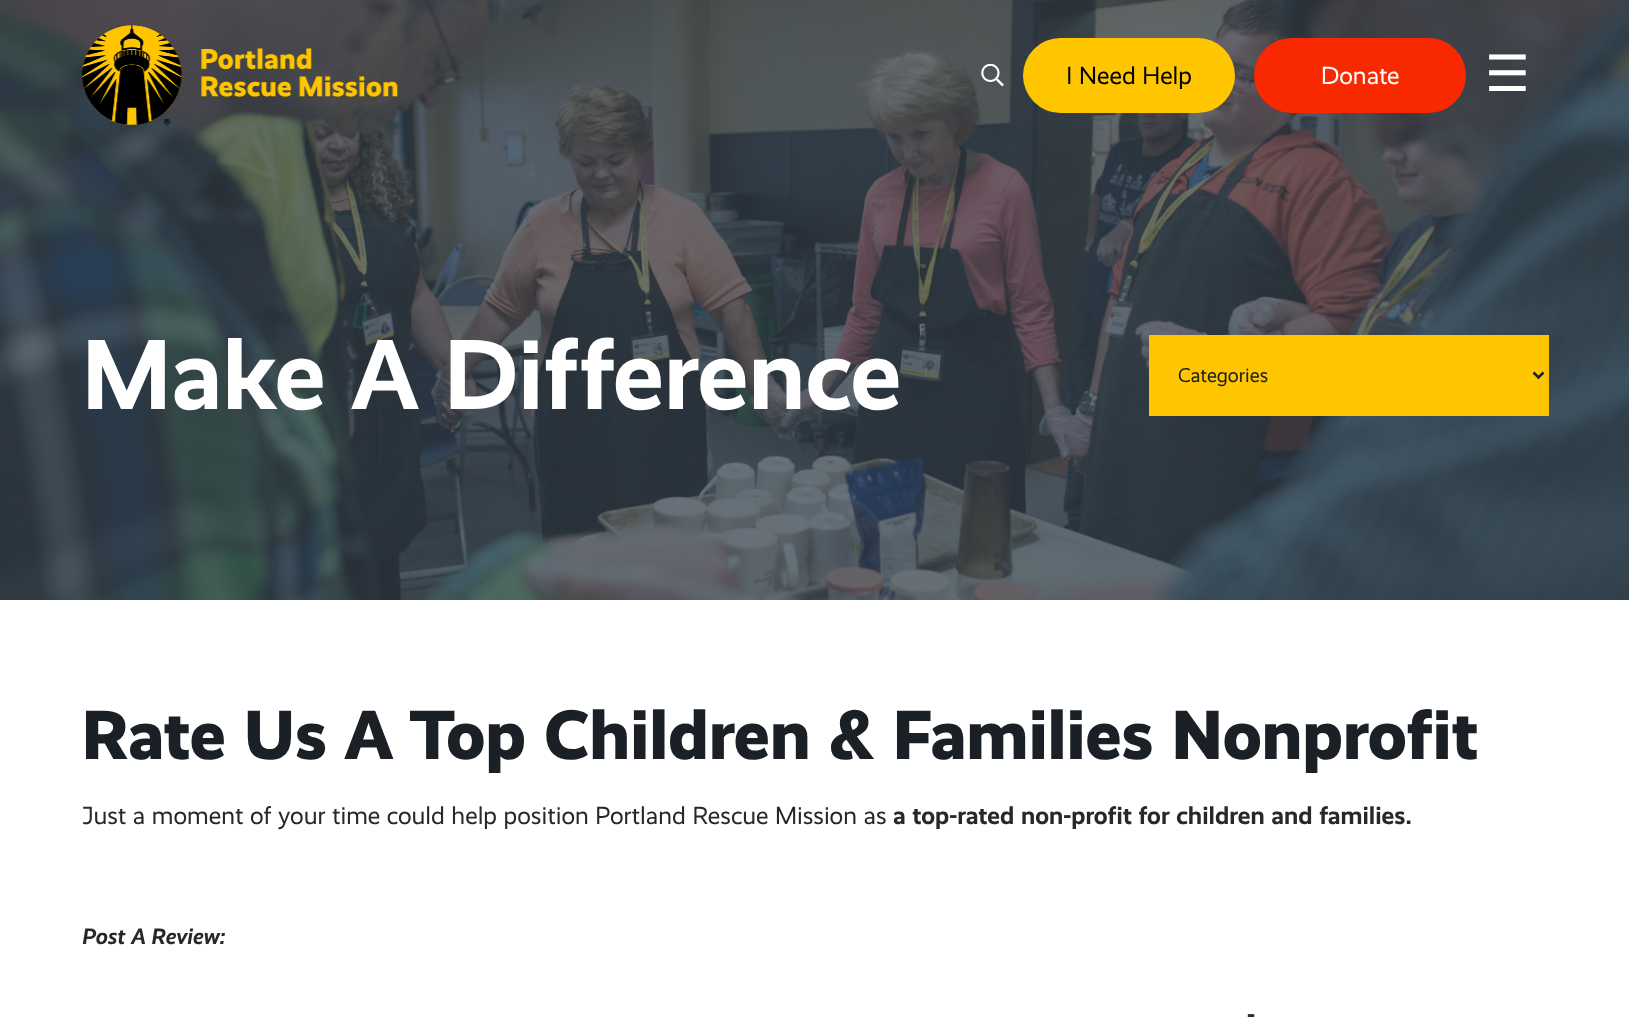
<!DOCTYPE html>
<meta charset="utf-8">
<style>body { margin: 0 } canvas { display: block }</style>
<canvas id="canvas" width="1629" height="1018"></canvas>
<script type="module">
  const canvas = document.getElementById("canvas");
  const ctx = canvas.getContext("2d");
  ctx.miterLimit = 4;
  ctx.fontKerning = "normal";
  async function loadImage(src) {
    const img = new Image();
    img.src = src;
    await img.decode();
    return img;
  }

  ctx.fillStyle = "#ffffff";
  ctx.fillRect(0, 0, 1629, 1018);
  ctx.drawImage(await loadImage("img3.png"), 0, 0, 1629, 600);
  ctx.drawImage(await loadImage("img1.png"), 82, 25, 316, 100);
  ctx.drawImage(await loadImage("img2.png"), 981, 64, 23, 22);
  ctx.fillStyle = "#ffc600";
  ctx.beginPath();
  ctx.roundRect(1023, 38, 212, 75, 37.5);
  ctx.fill();
  ctx.font = "25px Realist";
  ctx.fillStyle = "#000000";
  ctx.fillText("I Need Help", 1066, 84);
  ctx.fillStyle = "#f82900";
  ctx.beginPath();
  ctx.roundRect(1254, 38, 212, 75, 37.5);
  ctx.fill();
  ctx.fillStyle = "#ffffff";
  ctx.fillText("Donate", 1321, 84);
  ctx.font = "50px DejaVu Sans";
  ctx.fillText("☰", 1485, 91);
  ctx.font = "bold 100px Realist";
  ctx.fillText("Make A Difference", 82, 409);
  ctx.fillStyle = "#ffc600";
  ctx.fillRect(1149, 335, 400, 81);
  ctx.beginPath();
  ctx.moveTo(1533.5, 372.5);
  ctx.lineTo(1538.5, 377.5);
  ctx.lineTo(1543.5, 372.5);
  ctx.strokeStyle = "#1a2026";
  ctx.lineWidth = 2.5;
  ctx.stroke();
  ctx.font = "20px Realist";
  ctx.fillStyle = "#1a2026";
  ctx.fillText("Categories", 1178, 382);
  ctx.font = "800 70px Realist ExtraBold";
  ctx.fillText("Rate Us A Top Children & Families Nonprofit", 82, 759);
  ctx.font = "25px Realist";
  ctx.fillStyle = "#272829";
  ctx.fillText("Just a moment of your time could help position Portland Rescue Mission as", 82, 824);
  ctx.font = "bold 25px Realist";
  ctx.fillText("a top-rated non-profit for children and families.", 893, 824);
  ctx.font = "italic bold 22.5px Realist";
  ctx.fillText("Post A Review:", 82, 944);
  ctx.font = "bold 25px Realist";
  ctx.fillText("-", 1247, 1023);
</script>
